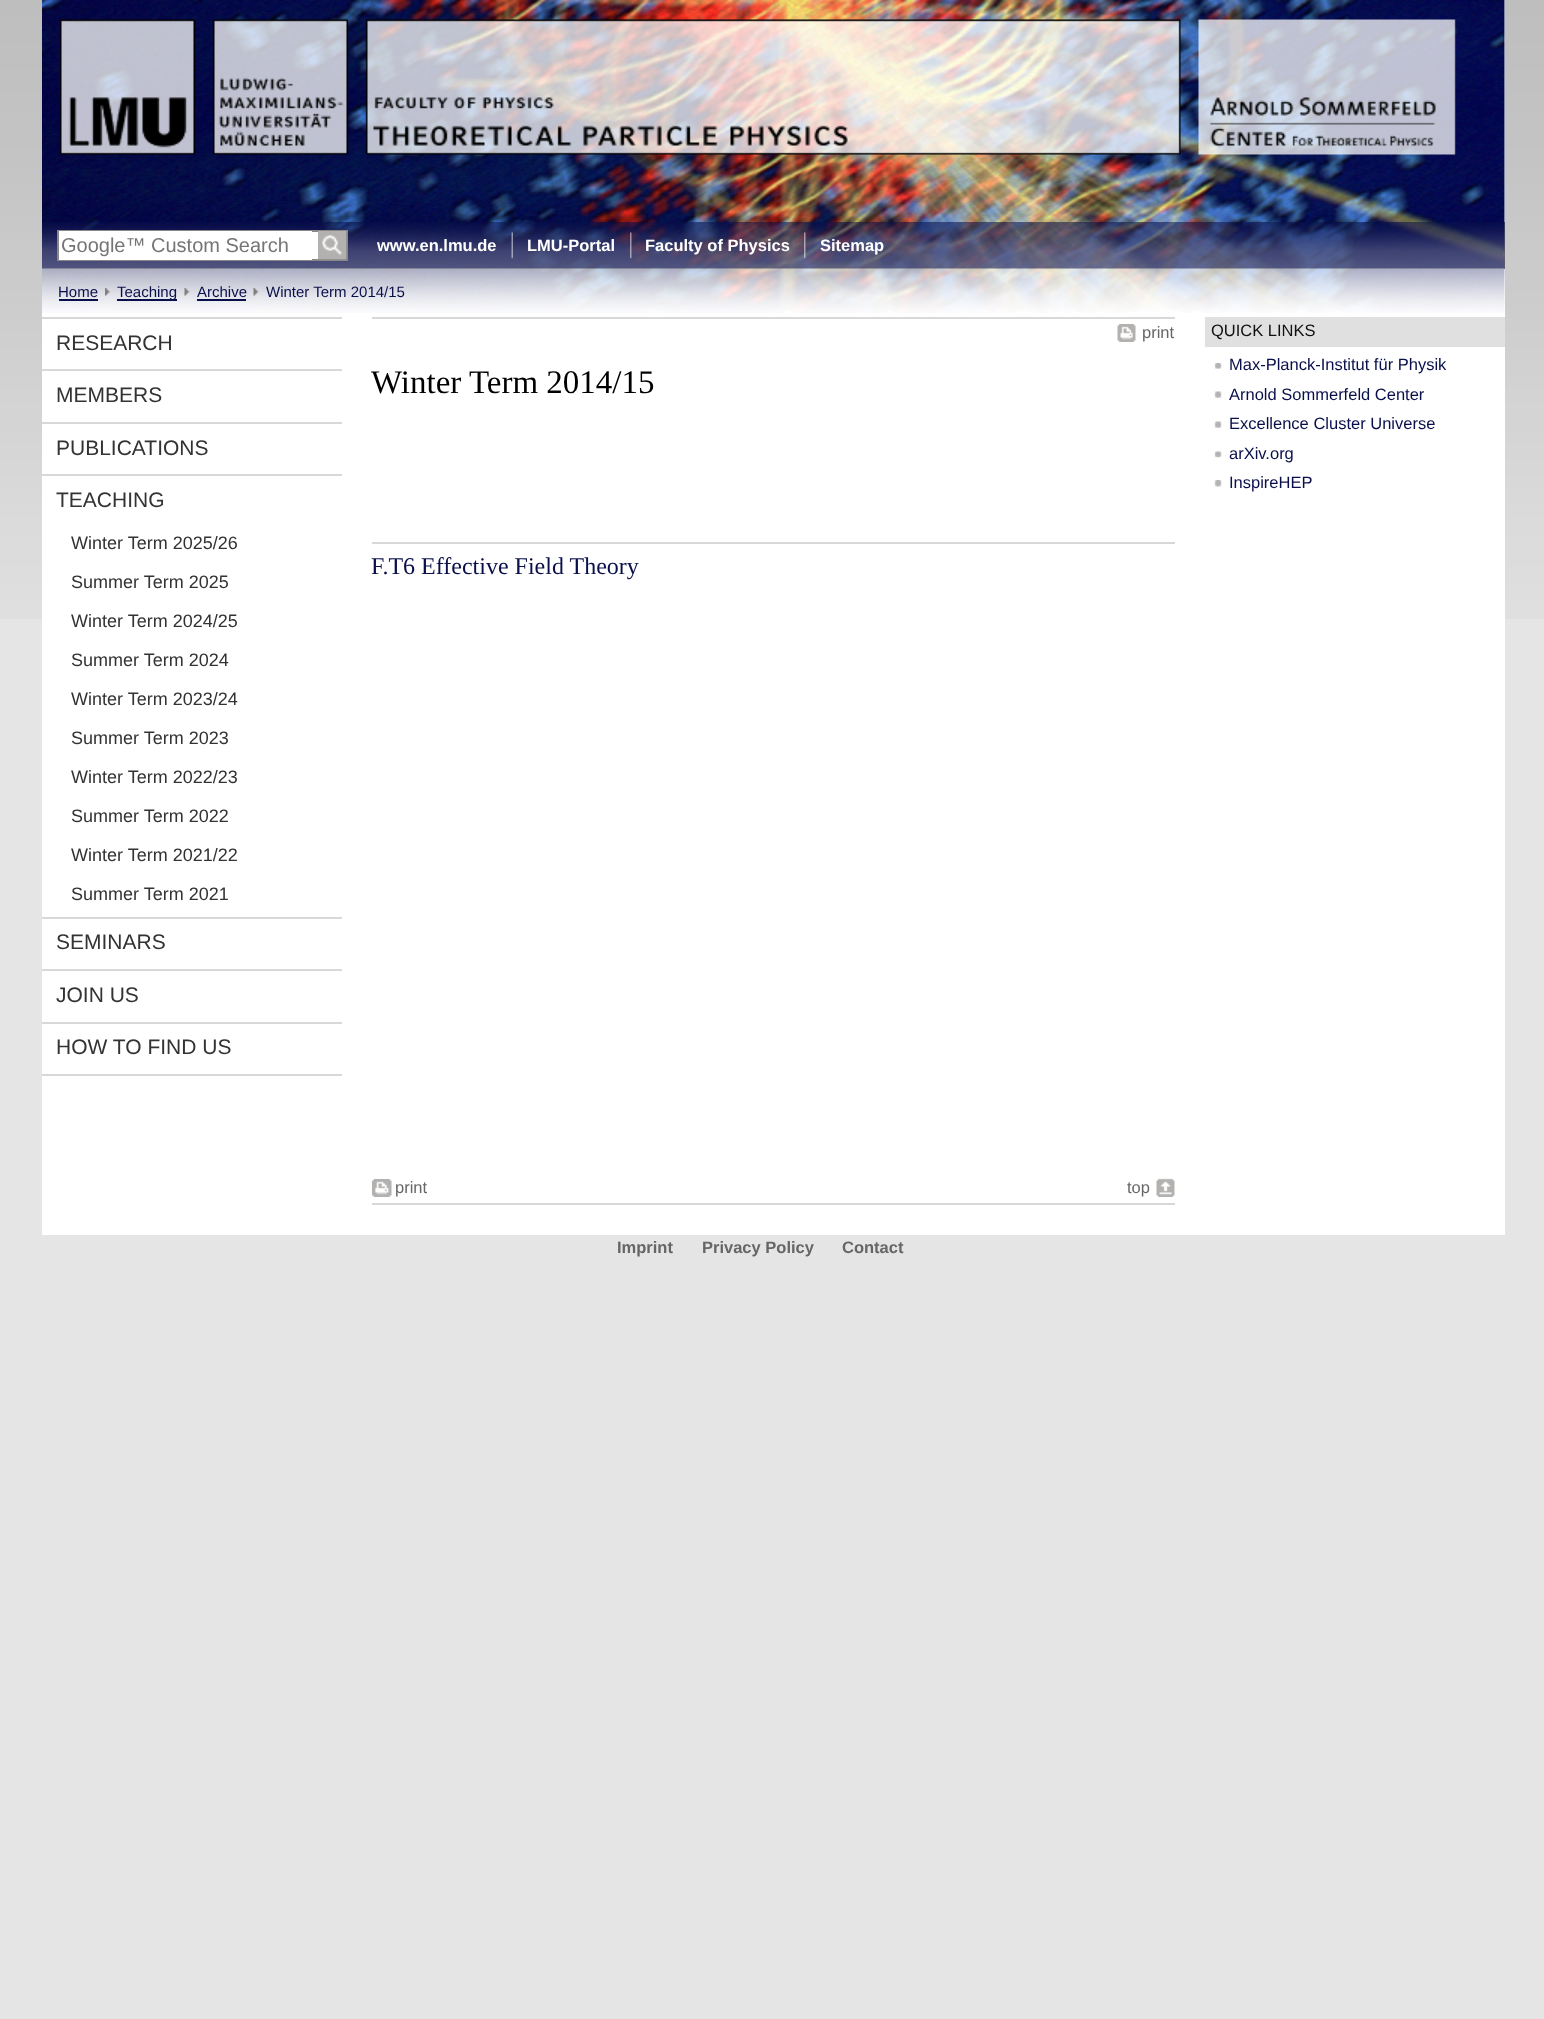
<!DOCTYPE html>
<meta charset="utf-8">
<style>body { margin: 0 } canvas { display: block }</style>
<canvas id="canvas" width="1544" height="2019"></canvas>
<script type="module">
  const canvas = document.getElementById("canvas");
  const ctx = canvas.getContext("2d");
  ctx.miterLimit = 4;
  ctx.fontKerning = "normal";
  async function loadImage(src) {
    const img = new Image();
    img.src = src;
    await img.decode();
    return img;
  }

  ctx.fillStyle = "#e5e5e5";
  ctx.fillRect(0, 0, 1544, 2019);
  ctx.drawImage(await loadImage("img1.png"), 0, 0, 1544, 619);
  ctx.fillStyle = "#ffffff";
  ctx.fillRect(42, 0, 1463, 1235);
  ctx.drawImage(await loadImage("img2.png"), 42, 0, 1463, 222);
  ctx.fillStyle = "#666666";
  ctx.fillRect(42, 222, 1463, 47);
  ctx.drawImage(await loadImage("img3.png"), 42, 222, 1463, 47);
  ctx.fillStyle = "#ffffff";
  ctx.fillRect(312, 232, 6, 27);
  ctx.strokeStyle = "#888888";
  ctx.lineWidth = 2;
  ctx.strokeRect(58, 231, 289, 29);
  ctx.fillRect(59, 231, 253, 29);
  ctx.save();
  ctx.beginPath();
  ctx.rect(62, 234, 247, 23);
  ctx.clip();
  ctx.font = "20px Liberation Sans";
  ctx.fillStyle = "#757575";
  ctx.fillText("Google™ Custom Search", 61, 252);
  ctx.restore();
  ctx.drawImage(await loadImage("img4.png"), 318, 231, 29, 29);
  ctx.font = "bold 16.5px Liberation Sans";
  ctx.fillText("www.en.lmu.de", 377, 251);
  ctx.drawImage(await loadImage("img5.png"), 511, 232, 2, 27);
  ctx.fillText("LMU-Portal", 527, 251);
  ctx.drawImage(await loadImage("img6.png"), 630, 232, 2, 27);
  ctx.fillText("Faculty of Physics", 645, 251);
  ctx.drawImage(await loadImage("img7.png"), 804, 232, 2, 27);
  ctx.fillText("Sitemap", 820, 251);
  ctx.drawImage(await loadImage("img8.png"), 42, 268, 1463, 45);
  ctx.font = "15px Liberation Sans";
  ctx.fillStyle = "#090f4a";
  ctx.fillText("Home", 58, 297);
  ctx.fillRect(59, 299, 39, 2);
  ctx.drawImage(await loadImage("img9.png"), 105, 288, 5, 8);
  ctx.fillRect(117, 299, 60, 2);
  ctx.fillText("Teaching", 117, 297);
  ctx.drawImage(await loadImage("img10.png"), 184, 288, 6, 8);
  ctx.fillText("Archive", 197, 297);
  ctx.fillRect(197, 299, 49, 2);
  ctx.drawImage(await loadImage("img11.png"), 253, 288, 6, 8);
  ctx.fillText("Winter Term 2014/15", 266, 297);
  ctx.fillStyle = "#d8d8d8";
  ctx.fillRect(42, 317, 300, 2);
  ctx.fillRect(42, 369, 300, 2);
  ctx.font = "21px Liberation Sans";
  ctx.fillStyle = "#333333";
  ctx.fillText("RESEARCH", 56, 350);
  ctx.fillStyle = "#d8d8d8";
  ctx.fillRect(42, 422, 300, 2);
  ctx.fillStyle = "#333333";
  ctx.fillText("MEMBERS", 56, 402);
  ctx.fillStyle = "#d8d8d8";
  ctx.fillRect(42, 474, 300, 2);
  ctx.fillStyle = "#333333";
  ctx.fillText("PUBLICATIONS", 56, 455);
  ctx.fillStyle = "#d8d8d8";
  ctx.fillRect(42, 917, 300, 2);
  ctx.fillStyle = "#333333";
  ctx.fillText("TEACHING", 56, 507);
  ctx.font = "18px Liberation Sans";
  ctx.fillText("Winter Term 2025/26", 71, 549);
  ctx.fillText("Summer Term 2025", 71, 588);
  ctx.fillText("Winter Term 2024/25", 71, 627);
  ctx.fillText("Summer Term 2024", 71, 666);
  ctx.fillText("Winter Term 2023/24", 71, 705);
  ctx.fillText("Summer Term 2023", 71, 744);
  ctx.fillText("Winter Term 2022/23", 71, 783);
  ctx.fillText("Summer Term 2022", 71, 822);
  ctx.fillText("Winter Term 2021/22", 71, 861);
  ctx.fillText("Summer Term 2021", 71, 900);
  ctx.fillStyle = "#d8d8d8";
  ctx.fillRect(42, 969, 300, 2);
  ctx.font = "21px Liberation Sans";
  ctx.fillStyle = "#333333";
  ctx.fillText("SEMINARS", 56, 949);
  ctx.fillStyle = "#d8d8d8";
  ctx.fillRect(42, 1022, 300, 2);
  ctx.fillStyle = "#333333";
  ctx.fillText("JOIN US", 56, 1002);
  ctx.fillStyle = "#d8d8d8";
  ctx.fillRect(42, 1074, 300, 2);
  ctx.fillStyle = "#333333";
  ctx.fillText("HOW TO FIND US", 56, 1054);
  ctx.fillStyle = "#d8d8d8";
  ctx.fillRect(372, 317, 803, 2);
  ctx.drawImage(await loadImage("img12.png"), 1117, 324, 19, 18);
  ctx.font = "16.5px Liberation Sans";
  ctx.fillStyle = "#666666";
  ctx.fillText("print", 1142, 338);
  ctx.font = "33px Liberation Serif";
  ctx.fillStyle = "#000000";
  ctx.fillText("Winter Term 2014/15", 371, 393);
  ctx.fillStyle = "#d8d8d8";
  ctx.fillRect(372, 542, 803, 2);
  ctx.font = "24px Liberation Serif";
  ctx.fillStyle = "#090f4a";
  ctx.fillText("F.T6 Effective Field Theory", 371, 574);
  ctx.fillStyle = "#d8d8d8";
  ctx.fillRect(372, 1203, 803, 2);
  ctx.drawImage(await loadImage("img13.png"), 372, 1179, 20, 18);
  ctx.font = "16.5px Liberation Sans";
  ctx.fillStyle = "#666666";
  ctx.fillText("print", 395, 1193);
  ctx.drawImage(await loadImage("img14.png"), 1156, 1178, 19, 19);
  ctx.fillText("top", 1127, 1193);
  ctx.fillStyle = "#e0e0e0";
  ctx.fillRect(1205, 317, 300, 30);
  ctx.fillStyle = "#111111";
  ctx.fillText("QUICK LINKS", 1211, 336);
  ctx.drawImage(await loadImage("img15.png"), 1214, 363, 8, 6);
  ctx.fillStyle = "#090f4a";
  ctx.fillText("Max-Planck-Institut für Physik", 1229, 370);
  ctx.drawImage(await loadImage("img16.png"), 1214, 391, 8, 7);
  ctx.fillText("Arnold Sommerfeld Center", 1229, 400);
  ctx.drawImage(await loadImage("img16.png"), 1214, 421, 8, 7);
  ctx.fillText("Excellence Cluster Universe", 1229, 429);
  ctx.drawImage(await loadImage("img17.png"), 1214, 451, 8, 7);
  ctx.fillText("arXiv.org", 1229, 459);
  ctx.drawImage(await loadImage("img18.png"), 1214, 480, 8, 7);
  ctx.fillText("InspireHEP", 1229, 488);
  ctx.font = "bold 16.5px Liberation Sans";
  ctx.fillStyle = "#666666";
  ctx.fillText("Imprint", 617, 1253);
  ctx.fillText("Privacy Policy", 702, 1253);
  ctx.fillText("Contact", 842, 1253);
</script>
